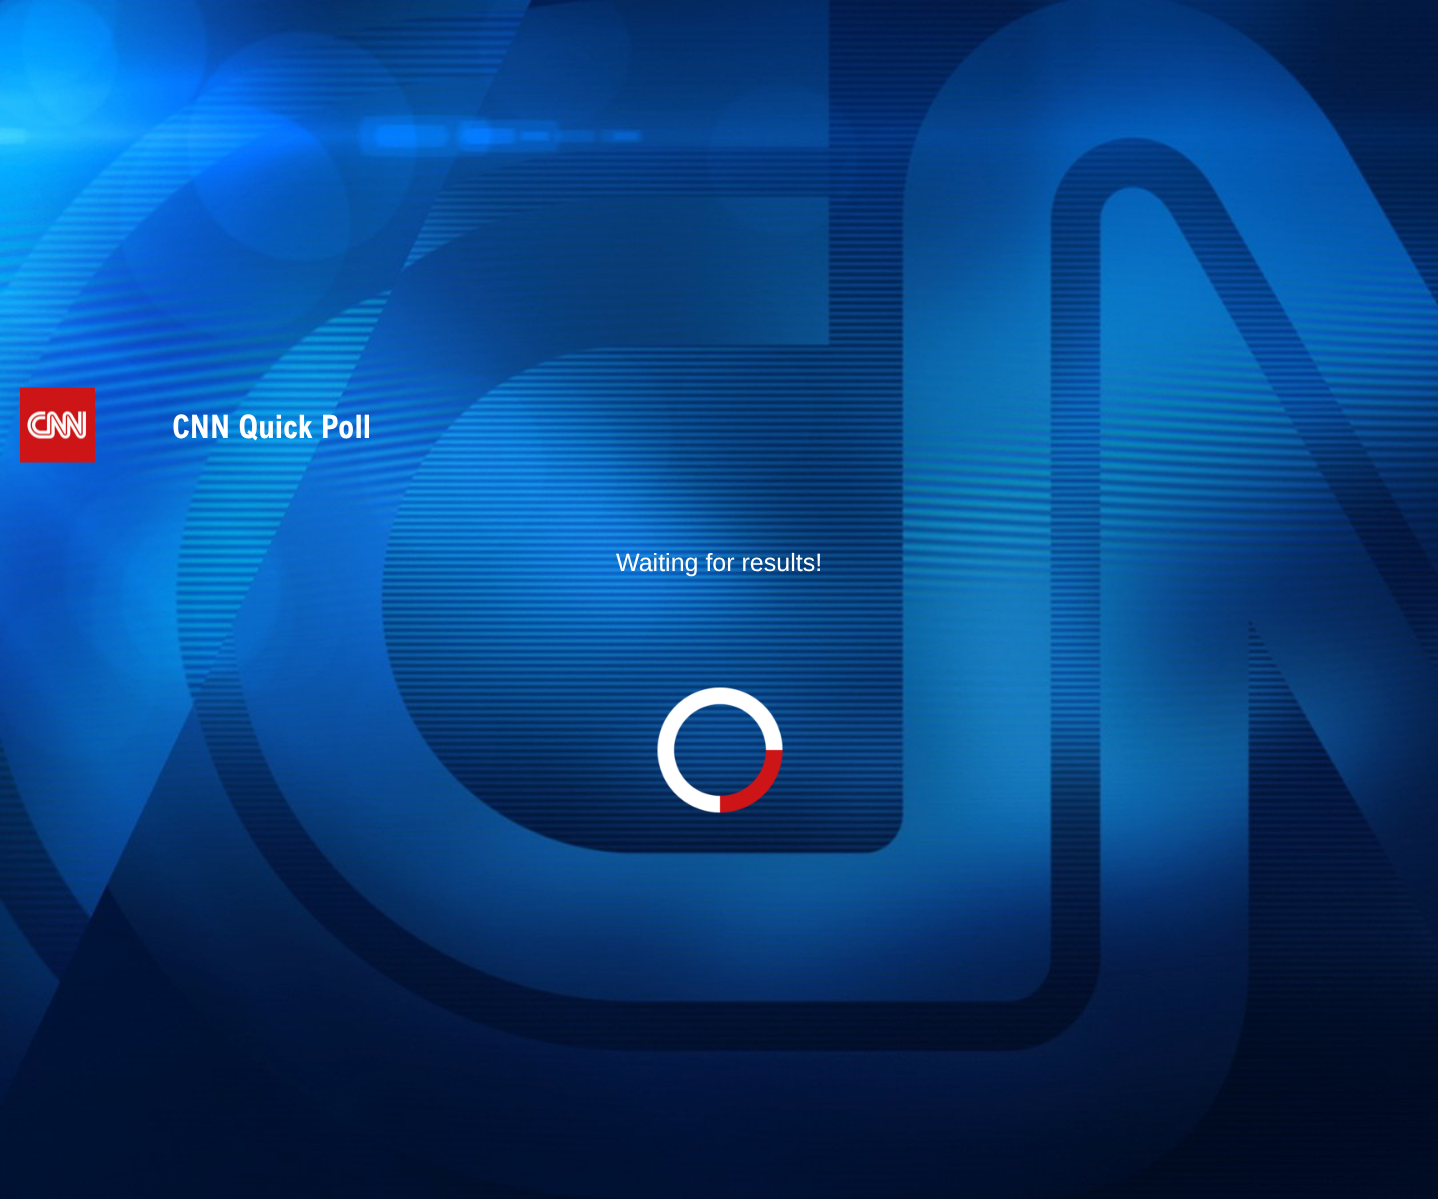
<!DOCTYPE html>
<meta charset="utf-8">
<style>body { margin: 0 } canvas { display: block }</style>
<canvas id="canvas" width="1438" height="1199"></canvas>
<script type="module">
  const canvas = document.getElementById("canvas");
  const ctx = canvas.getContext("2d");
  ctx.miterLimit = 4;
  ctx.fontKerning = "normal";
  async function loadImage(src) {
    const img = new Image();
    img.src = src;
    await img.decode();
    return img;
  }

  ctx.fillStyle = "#ffffff";
  ctx.fillRect(0, 0, 1438, 1199);
  ctx.drawImage(await loadImage("img1.png"), 0, 0, 1438, 1199);
  ctx.drawImage(await loadImage("img2.png"), 20, 387, 75, 76);
  ctx.font = "bold 32.5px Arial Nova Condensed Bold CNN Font";
  ctx.fillText("CNN Quick Poll", 172, 438);
  ctx.font = "25px Liberation Sans";
  ctx.fillText("Waiting for results!", 616, 571);
  ctx.drawImage(await loadImage("img3.png"), 657, 687, 126, 126);
</script>
